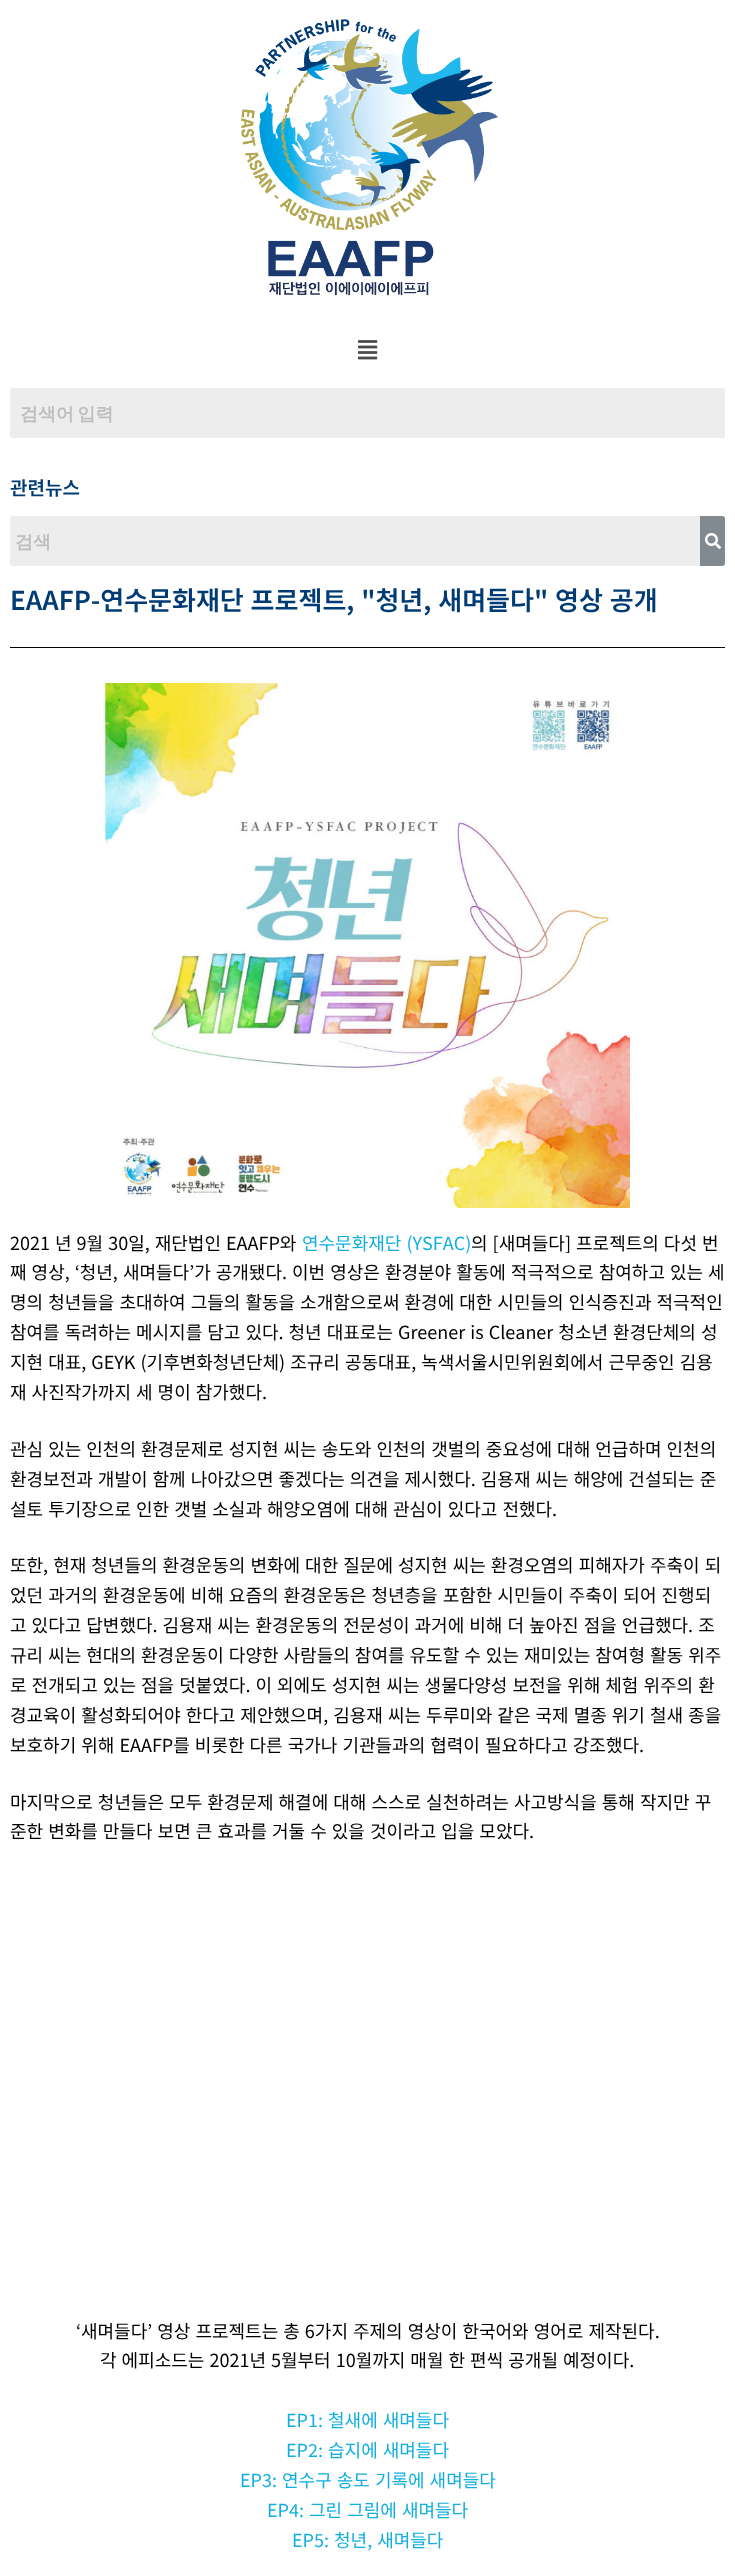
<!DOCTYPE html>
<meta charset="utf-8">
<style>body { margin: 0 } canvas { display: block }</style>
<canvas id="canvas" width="735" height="2572"></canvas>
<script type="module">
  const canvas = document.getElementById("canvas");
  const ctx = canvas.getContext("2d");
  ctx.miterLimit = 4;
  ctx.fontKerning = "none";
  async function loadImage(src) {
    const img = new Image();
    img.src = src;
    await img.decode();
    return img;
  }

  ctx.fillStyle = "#ffffff";
  ctx.fillRect(0, 0, 735, 2572);
  ctx.drawImage(await loadImage("img1.png"), 241, 19, 257, 277);
  ctx.drawImage(await loadImage("img2.png"), 358, 340, 20, 20);
  ctx.fillStyle = "#ededed";
  ctx.beginPath();
  ctx.roundRect(10, 388, 715, 50, 3);
  ctx.fill();
  ctx.wordSpacing = "-2px";
  ctx.font = "bold 18px WenQuanYi Zen Hei";
  ctx.fillStyle = "#bdbdbd";
  ctx.fillText("검색어 입력", 20, 420);
  ctx.wordSpacing = "0px";
  ctx.font = "600 19px Noto Sans KR";
  ctx.fillStyle = "#013b75";
  ctx.fillText("관련뉴스", 10, 495);
  ctx.fillStyle = "#ededed";
  ctx.beginPath();
  ctx.roundRect(10, 516, 690, 50, [3, 0, 0, 3]);
  ctx.fill();
  ctx.font = "bold 18px WenQuanYi Zen Hei";
  ctx.fillStyle = "#bdbdbd";
  ctx.fillText("검색", 15, 548);
  ctx.fillStyle = "#818a91";
  ctx.beginPath();
  ctx.roundRect(700, 516, 25, 50, [0, 3, 3, 0]);
  ctx.fill();
  ctx.drawImage(await loadImage("img3.png"), 705, 533, 16, 16);
  ctx.wordSpacing = "1px";
  ctx.font = "600 26px Noto Sans KR";
  ctx.fillStyle = "#013b75";
  ctx.fillText("EAAFP-연수문화재단 프로젝트, \"청년, 새며들다\" 영상 공개", 10, 610);
  ctx.fillStyle = "#000000";
  ctx.fillRect(10, 647, 715, 1);
  ctx.drawImage(await loadImage("img4.png"), 105, 683, 525, 525);
  ctx.font = "18px Noto Sans KR";
  ctx.fillText("2021 년 9월 30일, 재단법인 EAAFP와", 10, 1250);
  ctx.fillStyle = "#11afe0";
  ctx.fillText("연수문화재단 (YSFAC)", 302, 1250);
  ctx.fillStyle = "#000000";
  ctx.fillText("의 [새며들다] 프로젝트의 다섯 번", 471, 1250);
  ctx.fillText("째 영상, ‘청년, 새며들다’가 공개됐다. 이번 영상은 환경분야 활동에 적극적으로 참여하고 있는 세", 10, 1279);
  ctx.fillText("명의 청년들을 초대하여 그들의 활동을 소개함으로써 환경에 대한 시민들의 인식증진과 적극적인", 10, 1309);
  ctx.fillText("참여를 독려하는 메시지를 담고 있다. 청년 대표로는 Greener is Cleaner 청소년 환경단체의 성", 10, 1339);
  ctx.fillText("지현 대표, GEYK (기후변화청년단체) 조규리 공동대표, 녹색서울시민위원회에서 근무중인 김용", 10, 1369);
  ctx.fillText("재 사진작가까지 세 명이 참가했다.", 10, 1399);
  ctx.fillText("관심 있는 인천의 환경문제로 성지현 씨는 송도와 인천의 갯벌의 중요성에 대해 언급하며 인천의", 10, 1456);
  ctx.fillText("환경보전과 개발이 함께 나아갔으면 좋겠다는 의견을 제시했다. 김용재 씨는 해양에 건설되는 준", 10, 1486);
  ctx.fillText("설토 투기장으로 인한 갯벌 소실과 해양오염에 대해 관심이 있다고 전했다.", 10, 1516);
  ctx.fillText("또한, 현재 청년들의 환경운동의 변화에 대한 질문에 성지현 씨는 환경오염의 피해자가 주축이 되", 10, 1572);
  ctx.fillText("었던 과거의 환경운동에 비해 요즘의 환경운동은 청년층을 포함한 시민들이 주축이 되어 진행되", 10, 1602);
  ctx.fillText("고 있다고 답변했다. 김용재 씨는 환경운동의 전문성이 과거에 비해 더 높아진 점을 언급했다. 조", 10, 1632);
  ctx.fillText("규리 씨는 현대의 환경운동이 다양한 사람들의 참여를 유도할 수 있는 재미있는 참여형 활동 위주", 10, 1662);
  ctx.fillText("로 전개되고 있는 점을 덧붙였다. 이 외에도 성지현 씨는 생물다양성 보전을 위해 체험 위주의 환", 10, 1692);
  ctx.fillText("경교육이 활성화되어야 한다고 제안했으며, 김용재 씨는 두루미와 같은 국제 멸종 위기 철새 종을", 10, 1722);
  ctx.fillText("보호하기 위해 EAAFP를 비롯한 다른 국가나 기관들과의 협력이 필요하다고 강조했다.", 10, 1752);
  ctx.fillText("마지막으로 청년들은 모두 환경문제 해결에 대해 스스로 실천하려는 사고방식을 통해 작지만 꾸", 10, 1809);
  ctx.fillText("준한 변화를 만들다 보면 큰 효과를 거둘 수 있을 것이라고 입을 모았다.", 10, 1838);
  ctx.fillText("‘새며들다’ 영상 프로젝트는 총 6가지 주제의 영상이 한국어와 영어로 제작된다.", 76, 2338);
  ctx.fillText("각 에피소드는 2021년 5월부터 10월까지 매월 한 편씩 공개될 예정이다.", 100, 2367);
  ctx.fillStyle = "#11afe0";
  ctx.fillText("EP1: 철새에 새며들다", 286, 2427);
  ctx.fillText("EP2: 습지에 새며들다", 286, 2457);
  ctx.fillText("EP3: 연수구 송도 기록에 새며들다", 240, 2487);
  ctx.fillText("EP4: 그린 그림에 새며들다", 267, 2517);
  ctx.fillText("EP5: 청년, 새며들다", 292, 2547);
</script>
